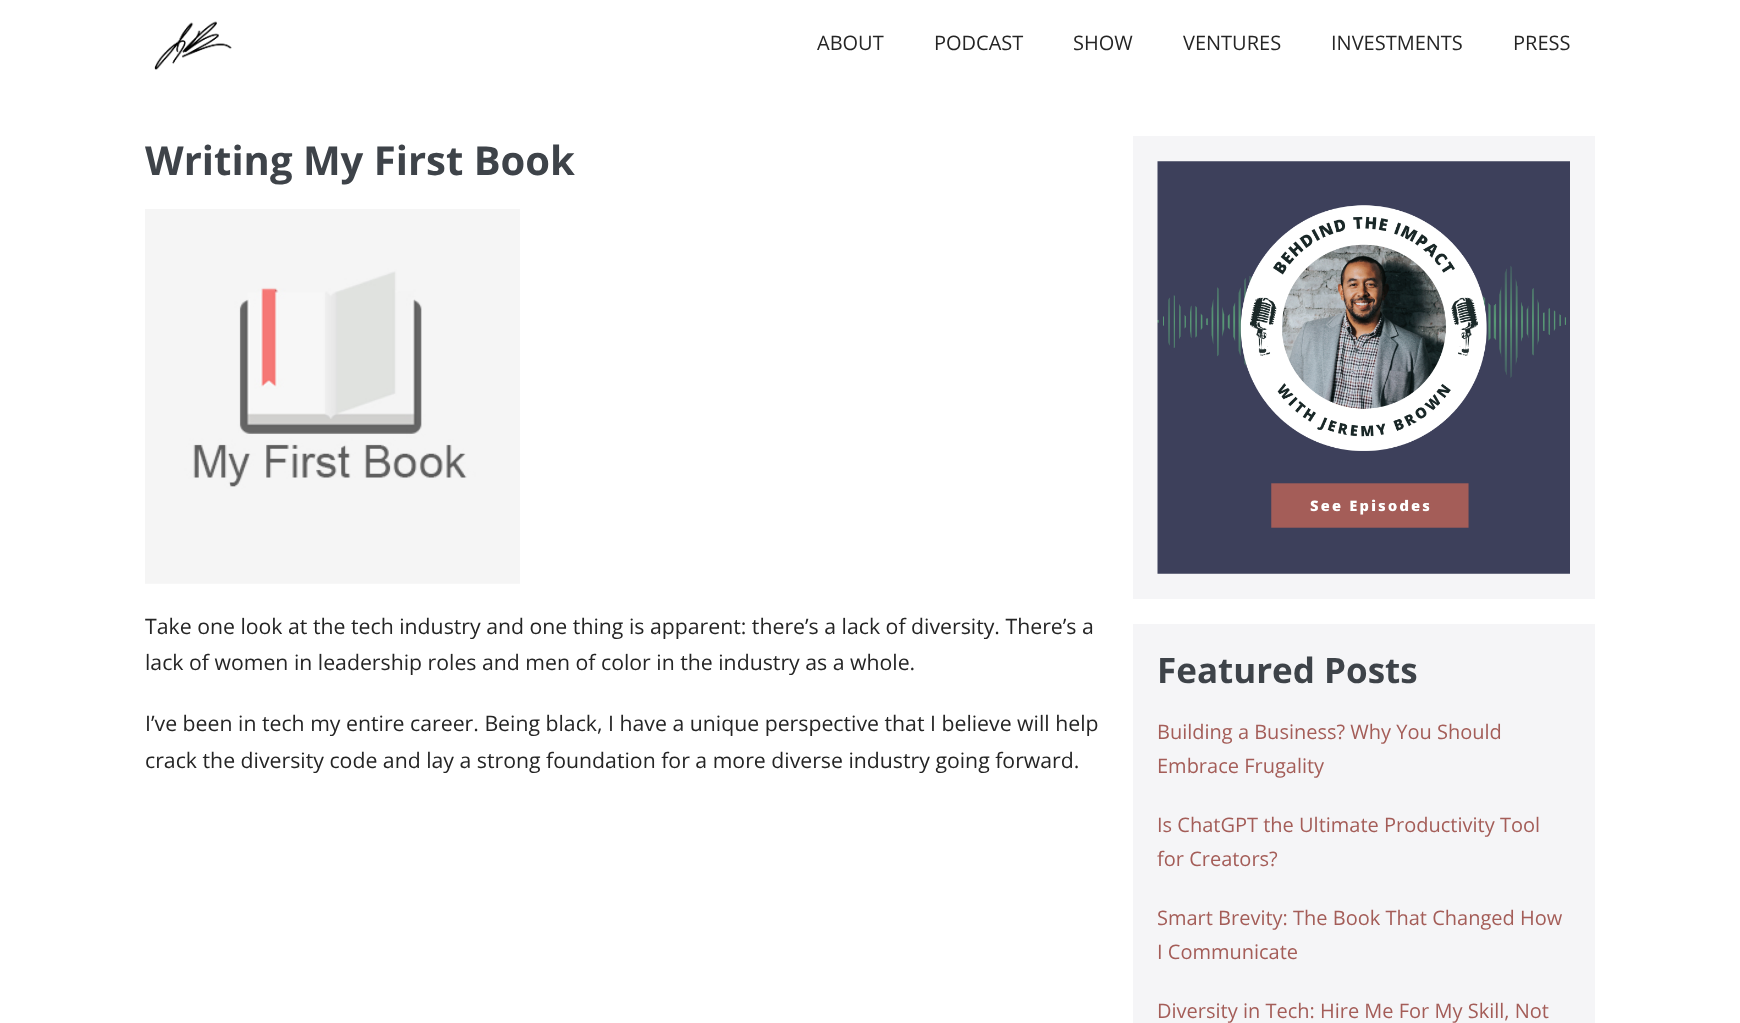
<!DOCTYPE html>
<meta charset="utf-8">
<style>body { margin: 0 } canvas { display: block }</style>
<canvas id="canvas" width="1740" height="1023"></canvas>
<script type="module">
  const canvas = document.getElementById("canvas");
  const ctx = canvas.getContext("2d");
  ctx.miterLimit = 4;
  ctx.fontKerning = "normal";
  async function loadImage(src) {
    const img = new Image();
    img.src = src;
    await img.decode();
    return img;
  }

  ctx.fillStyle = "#ffffff";
  ctx.fillRect(0, 0, 1740, 1023);
  ctx.drawImage(await loadImage("img1.png"), 154, 21, 78, 49);
  ctx.font = "20px Open Sans";
  ctx.fillStyle = "#252525";
  ctx.fillText("ABOUT", 817, 50);
  ctx.fillText("PODCAST", 934, 50);
  ctx.fillText("SHOW", 1073, 50);
  ctx.fillText("VENTURES", 1183, 50);
  ctx.fillText("INVESTMENTS", 1331, 50);
  ctx.fillText("PRESS", 1513, 50);
  ctx.font = "bold 40px Open Sans";
  ctx.fillStyle = "#3e4349";
  ctx.fillText("Writing My First Book", 145, 175);
  ctx.drawImage(await loadImage("img2.png"), 145, 209, 375, 375);
  ctx.font = "21.25px Open Sans";
  ctx.fillStyle = "#252525";
  ctx.fillText("Take one look at the tech industry and one thing is apparent: there’s a lack of diversity. There’s a", 145, 634);
  ctx.fillText("lack of women in leadership roles and men of color in the industry as a whole.", 145, 670);
  ctx.fillText("I’ve been in tech my entire career. Being black, I have a unique perspective that I believe will help", 145, 731);
  ctx.fillText("crack the diversity code and lay a strong foundation for a more diverse industry going forward.", 145, 768);
  ctx.fillStyle = "#f5f5f7";
  ctx.fillRect(1133, 136, 462, 463);
  ctx.drawImage(await loadImage("img3.png"), 1157, 161, 413, 413);
  ctx.fillRect(1133, 624, 462, 399);
  ctx.font = "bold 35px Open Sans";
  ctx.fillStyle = "#3e4349";
  ctx.fillText("Featured Posts", 1157, 683);
  ctx.font = "20px Open Sans";
  ctx.fillStyle = "#a45d58";
  ctx.fillText("Building a Business? Why You Should", 1157, 739);
  ctx.fillText("Embrace Frugality", 1157, 773);
  ctx.fillText("Is ChatGPT the Ultimate Productivity Tool", 1157, 832);
  ctx.fillText("for Creators?", 1157, 866);
  ctx.fillText("Smart Brevity: The Book That Changed How", 1157, 925);
  ctx.fillText("I Communicate", 1157, 959);
  ctx.fillText("Diversity in Tech: Hire Me For My Skill, Not", 1157, 1018);
</script>
